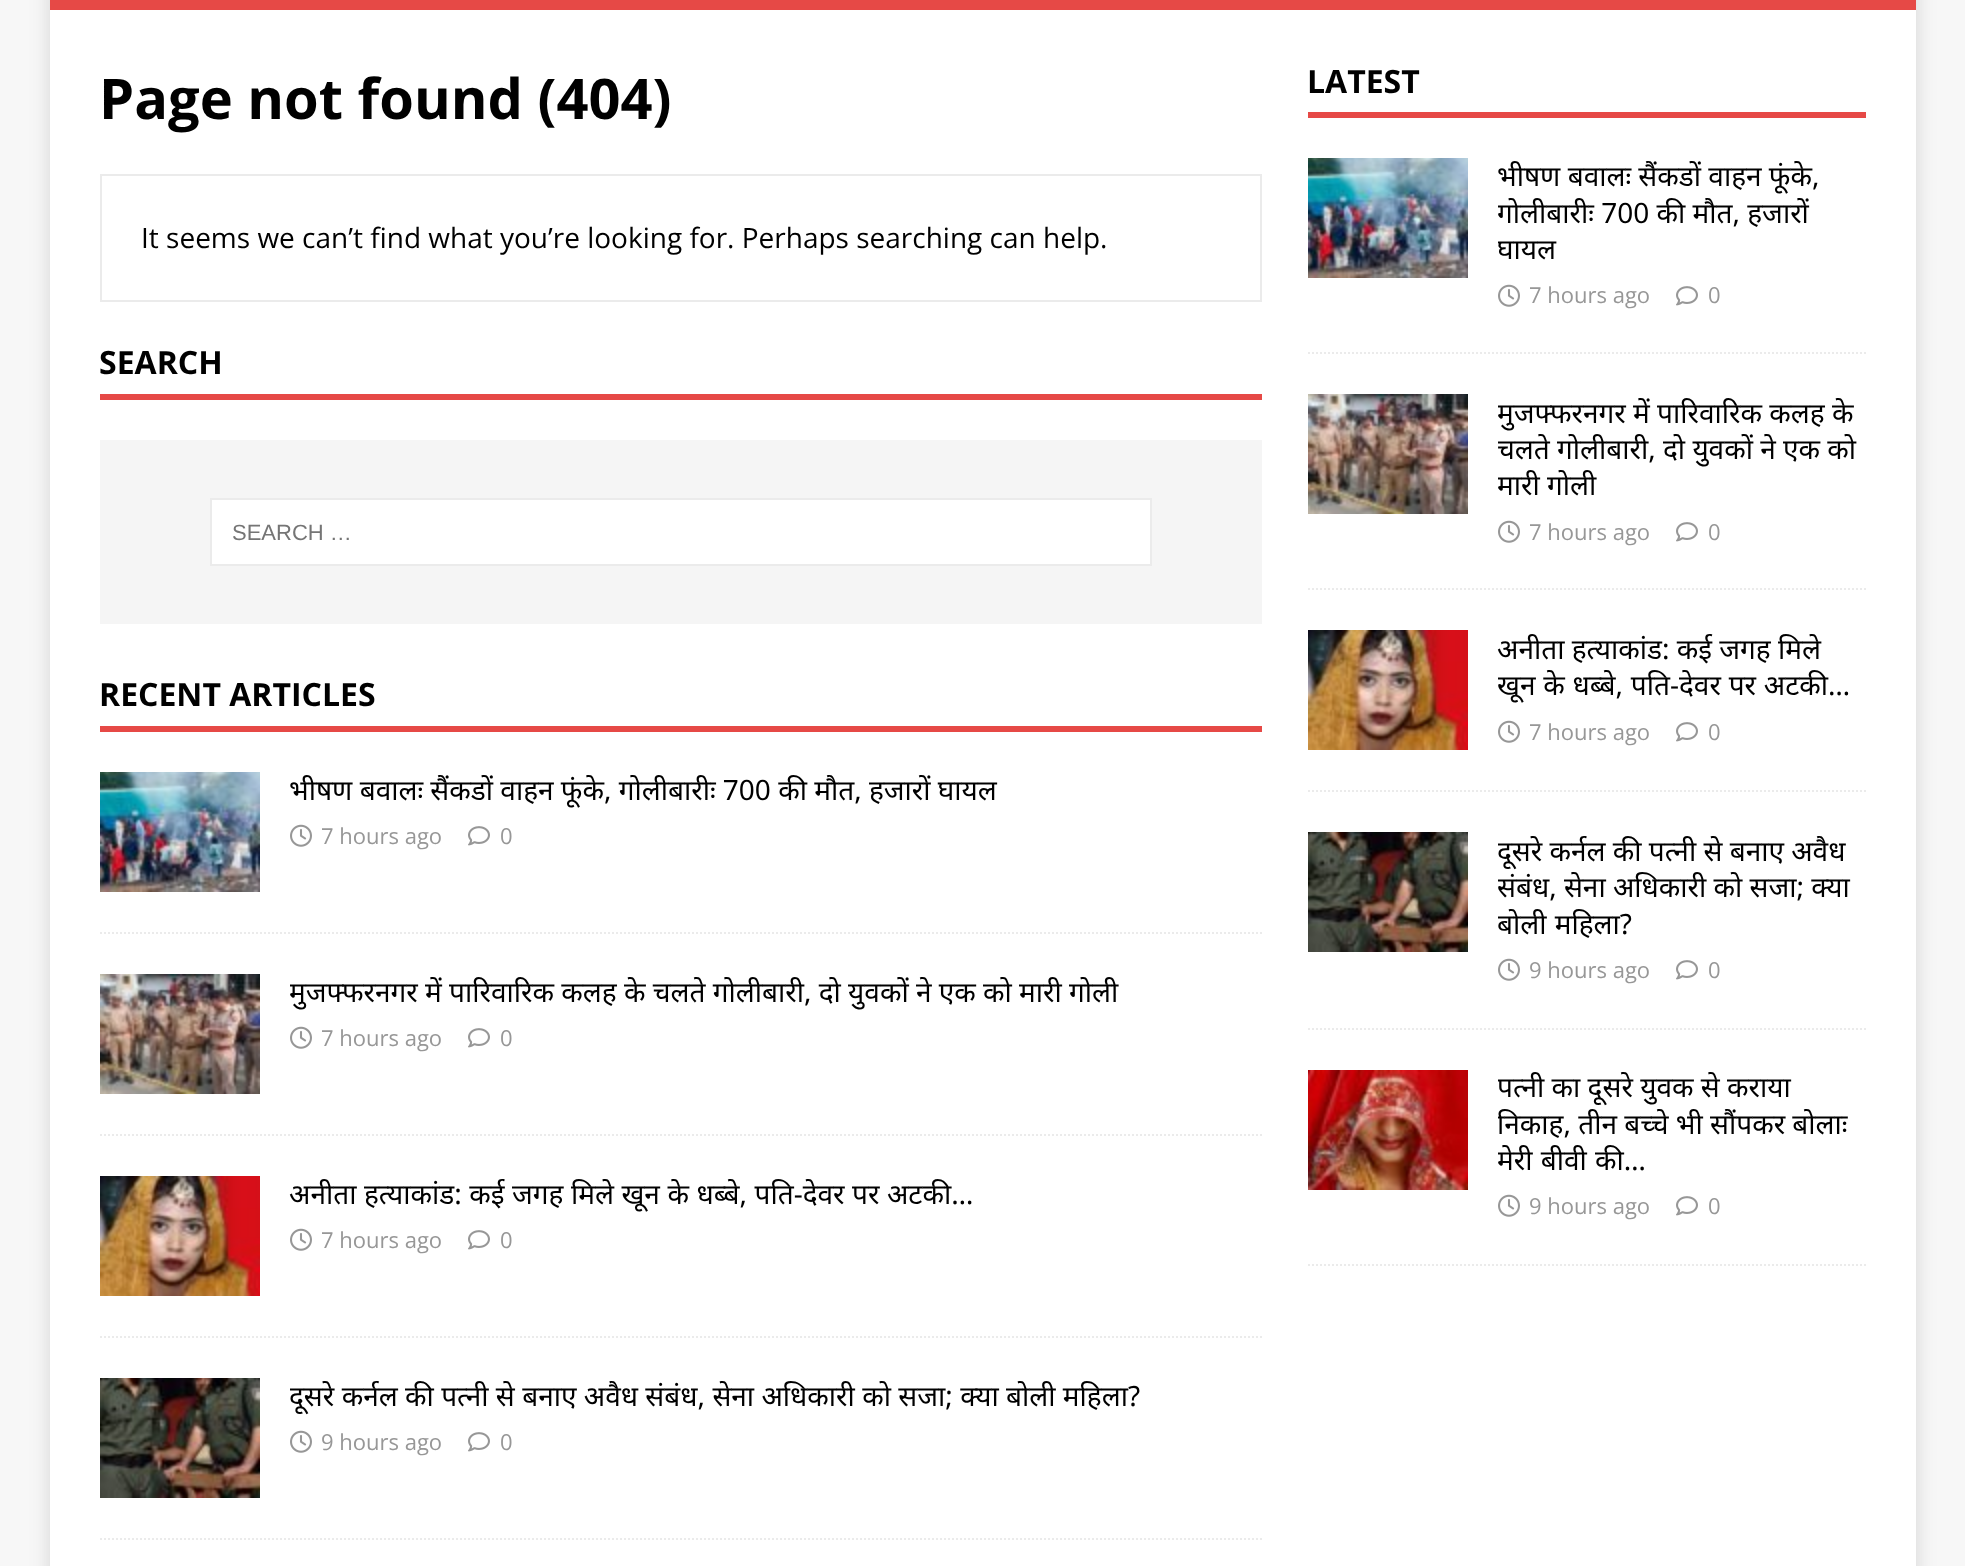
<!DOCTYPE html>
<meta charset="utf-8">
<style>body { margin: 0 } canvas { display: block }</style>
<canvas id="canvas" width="1965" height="1566"></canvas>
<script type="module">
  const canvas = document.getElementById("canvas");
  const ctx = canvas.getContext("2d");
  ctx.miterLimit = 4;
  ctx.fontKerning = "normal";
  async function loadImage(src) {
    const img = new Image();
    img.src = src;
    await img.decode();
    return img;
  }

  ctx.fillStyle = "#f7f7f7";
  ctx.fillRect(0, 0, 1965, 1566);
  ctx.fillStyle = "rgba(50, 50, 50, 0.17)";
  ctx.filter = "blur(10px)";
  ctx.beginPath();
  ctx.rect(50, -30, 1866, 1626);
  ctx.fill();
  ctx.filter = "none";
  ctx.fillStyle = "#e64946";
  ctx.fillRect(50, 0, 1866, 10);
  ctx.fillStyle = "#ffffff";
  ctx.fillRect(50, 10, 1866, 1556);
  ctx.font = "bold 56px Open Sans";
  ctx.fillStyle = "#000000";
  ctx.fillText("Page not found (404)", 99, 119);
  ctx.strokeStyle = "#ebebeb";
  ctx.lineWidth = 2;
  ctx.strokeRect(101, 175, 1160, 126);
  ctx.font = "28px Open Sans";
  ctx.fillText("It seems we can’t find what you’re looking for. Perhaps searching can help.", 141, 248);
  ctx.fillStyle = "#e64946";
  ctx.fillRect(100, 394, 1162, 6);
  ctx.font = "bold 32px Open Sans";
  ctx.fillStyle = "#000000";
  ctx.fillText("SEARCH", 99, 374);
  ctx.fillStyle = "#f5f5f5";
  ctx.fillRect(100, 440, 1162, 184);
  ctx.fillStyle = "#ffffff";
  ctx.beginPath();
  ctx.rect(211, 499, 940, 66);
  ctx.fill();
  ctx.stroke();
  ctx.font = "22px Liberation Sans";
  ctx.fillStyle = "#757575";
  ctx.fillText("SEARCH …", 232, 540);
  ctx.fillStyle = "#e64946";
  ctx.fillRect(100, 726, 1162, 6);
  ctx.font = "bold 32px Open Sans";
  ctx.fillStyle = "#000000";
  ctx.fillText("RECENT ARTICLES", 99, 706);
  ctx.beginPath();
  ctx.moveTo(100, 933);
  ctx.lineTo(1262, 933);
  ctx.setLineDash([2, 2]);
  ctx.stroke();
  ctx.drawImage(await loadImage("img1.png"), 100, 772, 160, 120);
  ctx.save();
  ctx.beginPath();
  ctx.rect(290, 772, 972, 82);
  ctx.clip();
  ctx.font = "28px Noto Sans";
  ctx.fillText("भीषण बवालः सैंकडों वाहन फूंके, गोलीबारीः 700 की मौत, हजारों घायल", 289, 800);
  ctx.restore();
  ctx.drawImage(await loadImage("img2.png"), 290, 824, 22, 23);
  ctx.font = "22px Open Sans";
  ctx.fillStyle = "#979797";
  ctx.fillText("7 hours ago", 321, 844);
  ctx.drawImage(await loadImage("img3.png"), 468, 826, 22, 20);
  ctx.fillText("0", 500, 844);
  ctx.beginPath();
  ctx.moveTo(100, 1135);
  ctx.lineTo(1262, 1135);
  ctx.stroke();
  ctx.drawImage(await loadImage("img4.png"), 100, 974, 160, 120);
  ctx.save();
  ctx.beginPath();
  ctx.rect(290, 974, 972, 82);
  ctx.clip();
  ctx.font = "28px Noto Sans";
  ctx.fillStyle = "#000000";
  ctx.fillText("मुजफ्फरनगर में पारिवारिक कलह के चलते गोलीबारी, दो युवकों ने एक को मारी गोली", 289, 1002);
  ctx.restore();
  ctx.drawImage(await loadImage("img2.png"), 290, 1026, 22, 23);
  ctx.fillText("7 hours ago", 321, 1046);
  ctx.drawImage(await loadImage("img3.png"), 468, 1028, 22, 20);
  ctx.fillText("0", 500, 1046);
  ctx.beginPath();
  ctx.moveTo(100, 1337);
  ctx.lineTo(1262, 1337);
  ctx.stroke();
  ctx.drawImage(await loadImage("img5.png"), 100, 1176, 160, 120);
  ctx.wordSpacing = "0.25px";
  ctx.font = "28px Noto Sans";
  ctx.fillStyle = "#000000";
  ctx.fillText("अनीता हत्याकांड: कई जगह मिले खून के धब्बे, पति-देवर पर अटकी…", 289, 1204);
  ctx.drawImage(await loadImage("img2.png"), 290, 1228, 22, 23);
  ctx.wordSpacing = "0px";
  ctx.font = "22px Open Sans";
  ctx.fillStyle = "#979797";
  ctx.fillText("7 hours ago", 321, 1248);
  ctx.drawImage(await loadImage("img3.png"), 468, 1230, 22, 20);
  ctx.fillText("0", 500, 1248);
  ctx.beginPath();
  ctx.moveTo(100, 1539);
  ctx.lineTo(1262, 1539);
  ctx.stroke();
  ctx.drawImage(await loadImage("img6.png"), 100, 1378, 160, 120);
  ctx.save();
  ctx.beginPath();
  ctx.rect(290, 1378, 972, 82);
  ctx.clip();
  ctx.wordSpacing = "0.1px";
  ctx.font = "28px Noto Sans";
  ctx.fillStyle = "#000000";
  ctx.fillText("दूसरे कर्नल की पत्नी से बनाए अवैध संबंध, सेना अधिकारी को सजा; क्या बोली महिला?", 289, 1406);
  ctx.restore();
  ctx.drawImage(await loadImage("img2.png"), 290, 1430, 22, 23);
  ctx.fillText("9 hours ago", 321, 1450);
  ctx.drawImage(await loadImage("img3.png"), 468, 1432, 22, 20);
  ctx.fillText("0", 500, 1450);
  ctx.fillStyle = "#e64946";
  ctx.fillRect(1308, 112, 558, 6);
  ctx.font = "bold 32px Open Sans";
  ctx.fillStyle = "#000000";
  ctx.fillText("LATEST", 1307, 93);
  ctx.beginPath();
  ctx.moveTo(1308, 353);
  ctx.lineTo(1866, 353);
  ctx.stroke();
  ctx.drawImage(await loadImage("img1.png"), 1308, 158, 160, 120);
  ctx.save();
  ctx.beginPath();
  ctx.rect(1498, 158, 368, 154);
  ctx.clip();
  ctx.font = "28px Noto Sans";
  ctx.fillText("भीषण बवालः सैंकडों वाहन फूंके,", 1497, 186);
  ctx.fillText("गोलीबारीः 700 की मौत, हजारों", 1497, 223);
  ctx.fillText("घायल", 1497, 259);
  ctx.restore();
  ctx.drawImage(await loadImage("img2.png"), 1498, 284, 22, 23);
  ctx.font = "22px Open Sans";
  ctx.fillStyle = "#979797";
  ctx.fillText("7 hours ago", 1529, 303);
  ctx.drawImage(await loadImage("img3.png"), 1676, 286, 22, 20);
  ctx.fillText("0", 1708, 303);
  ctx.beginPath();
  ctx.moveTo(1308, 589);
  ctx.lineTo(1866, 589);
  ctx.stroke();
  ctx.drawImage(await loadImage("img4.png"), 1308, 394, 160, 120);
  ctx.save();
  ctx.beginPath();
  ctx.rect(1498, 394, 368, 154);
  ctx.clip();
  ctx.font = "28px Noto Sans";
  ctx.fillStyle = "#000000";
  ctx.fillText("मुजफ्फरनगर में पारिवारिक कलह के", 1497, 423);
  ctx.fillText("चलते गोलीबारी, दो युवकों ने एक को", 1497, 459);
  ctx.fillText("मारी गोली", 1497, 495);
  ctx.restore();
  ctx.drawImage(await loadImage("img2.png"), 1498, 520, 22, 23);
  ctx.fillText("7 hours ago", 1529, 540);
  ctx.drawImage(await loadImage("img3.png"), 1676, 522, 22, 20);
  ctx.fillText("0", 1708, 540);
  ctx.beginPath();
  ctx.moveTo(1308, 791);
  ctx.lineTo(1866, 791);
  ctx.stroke();
  ctx.drawImage(await loadImage("img5.png"), 1308, 630, 160, 120);
  ctx.font = "28px Noto Sans";
  ctx.fillStyle = "#000000";
  ctx.fillText("अनीता हत्याकांड: कई जगह मिले", 1497, 659);
  ctx.save();
  ctx.beginPath();
  ctx.rect(1498, 630, 368, 118);
  ctx.clip();
  ctx.wordSpacing = "0.5px";
  ctx.fillText("खून के धब्बे, पति-देवर पर अटकी…", 1497, 695);
  ctx.restore();
  ctx.drawImage(await loadImage("img2.png"), 1498, 720, 22, 23);
  ctx.font = "22px Open Sans";
  ctx.fillStyle = "#979797";
  ctx.fillText("7 hours ago", 1529, 740);
  ctx.drawImage(await loadImage("img3.png"), 1676, 722, 22, 20);
  ctx.fillText("0", 1708, 740);
  ctx.beginPath();
  ctx.moveTo(1308, 1029);
  ctx.lineTo(1866, 1029);
  ctx.stroke();
  ctx.drawImage(await loadImage("img6.png"), 1308, 832, 160, 120);
  ctx.save();
  ctx.beginPath();
  ctx.rect(1498, 832, 368, 156);
  ctx.clip();
  ctx.font = "28px Noto Sans";
  ctx.fillStyle = "#000000";
  ctx.fillText("दूसरे कर्नल की पत्नी से बनाए अवैध", 1497, 861);
  ctx.fillText("संबंध, सेना अधिकारी को सजा; क्या", 1497, 897);
  ctx.wordSpacing = "1px";
  ctx.fillText("बोली महिला?", 1497, 934);
  ctx.restore();
  ctx.drawImage(await loadImage("img2.png"), 1498, 958, 22, 23);
  ctx.fillText("9 hours ago", 1529, 978);
  ctx.drawImage(await loadImage("img3.png"), 1676, 960, 22, 20);
  ctx.fillText("0", 1708, 978);
  ctx.beginPath();
  ctx.moveTo(1308, 1265);
  ctx.lineTo(1866, 1265);
  ctx.stroke();
  ctx.drawImage(await loadImage("img7.png"), 1308, 1070, 160, 120);
  ctx.save();
  ctx.beginPath();
  ctx.rect(1498, 1070, 368, 154);
  ctx.clip();
  ctx.font = "28px Noto Sans";
  ctx.fillStyle = "#000000";
  ctx.fillText("पत्नी का दूसरे युवक से कराया", 1497, 1097);
  ctx.fillText("निकाह, तीन बच्चे भी सौंपकर बोलाः", 1497, 1134);
  ctx.wordSpacing = "1px";
  ctx.fillText("मेरी बीवी की…", 1497, 1170);
  ctx.restore();
  ctx.drawImage(await loadImage("img2.png"), 1498, 1194, 22, 23);
  ctx.fillText("9 hours ago", 1529, 1214);
  ctx.drawImage(await loadImage("img3.png"), 1676, 1196, 22, 20);
  ctx.fillText("0", 1708, 1214);
</script>
